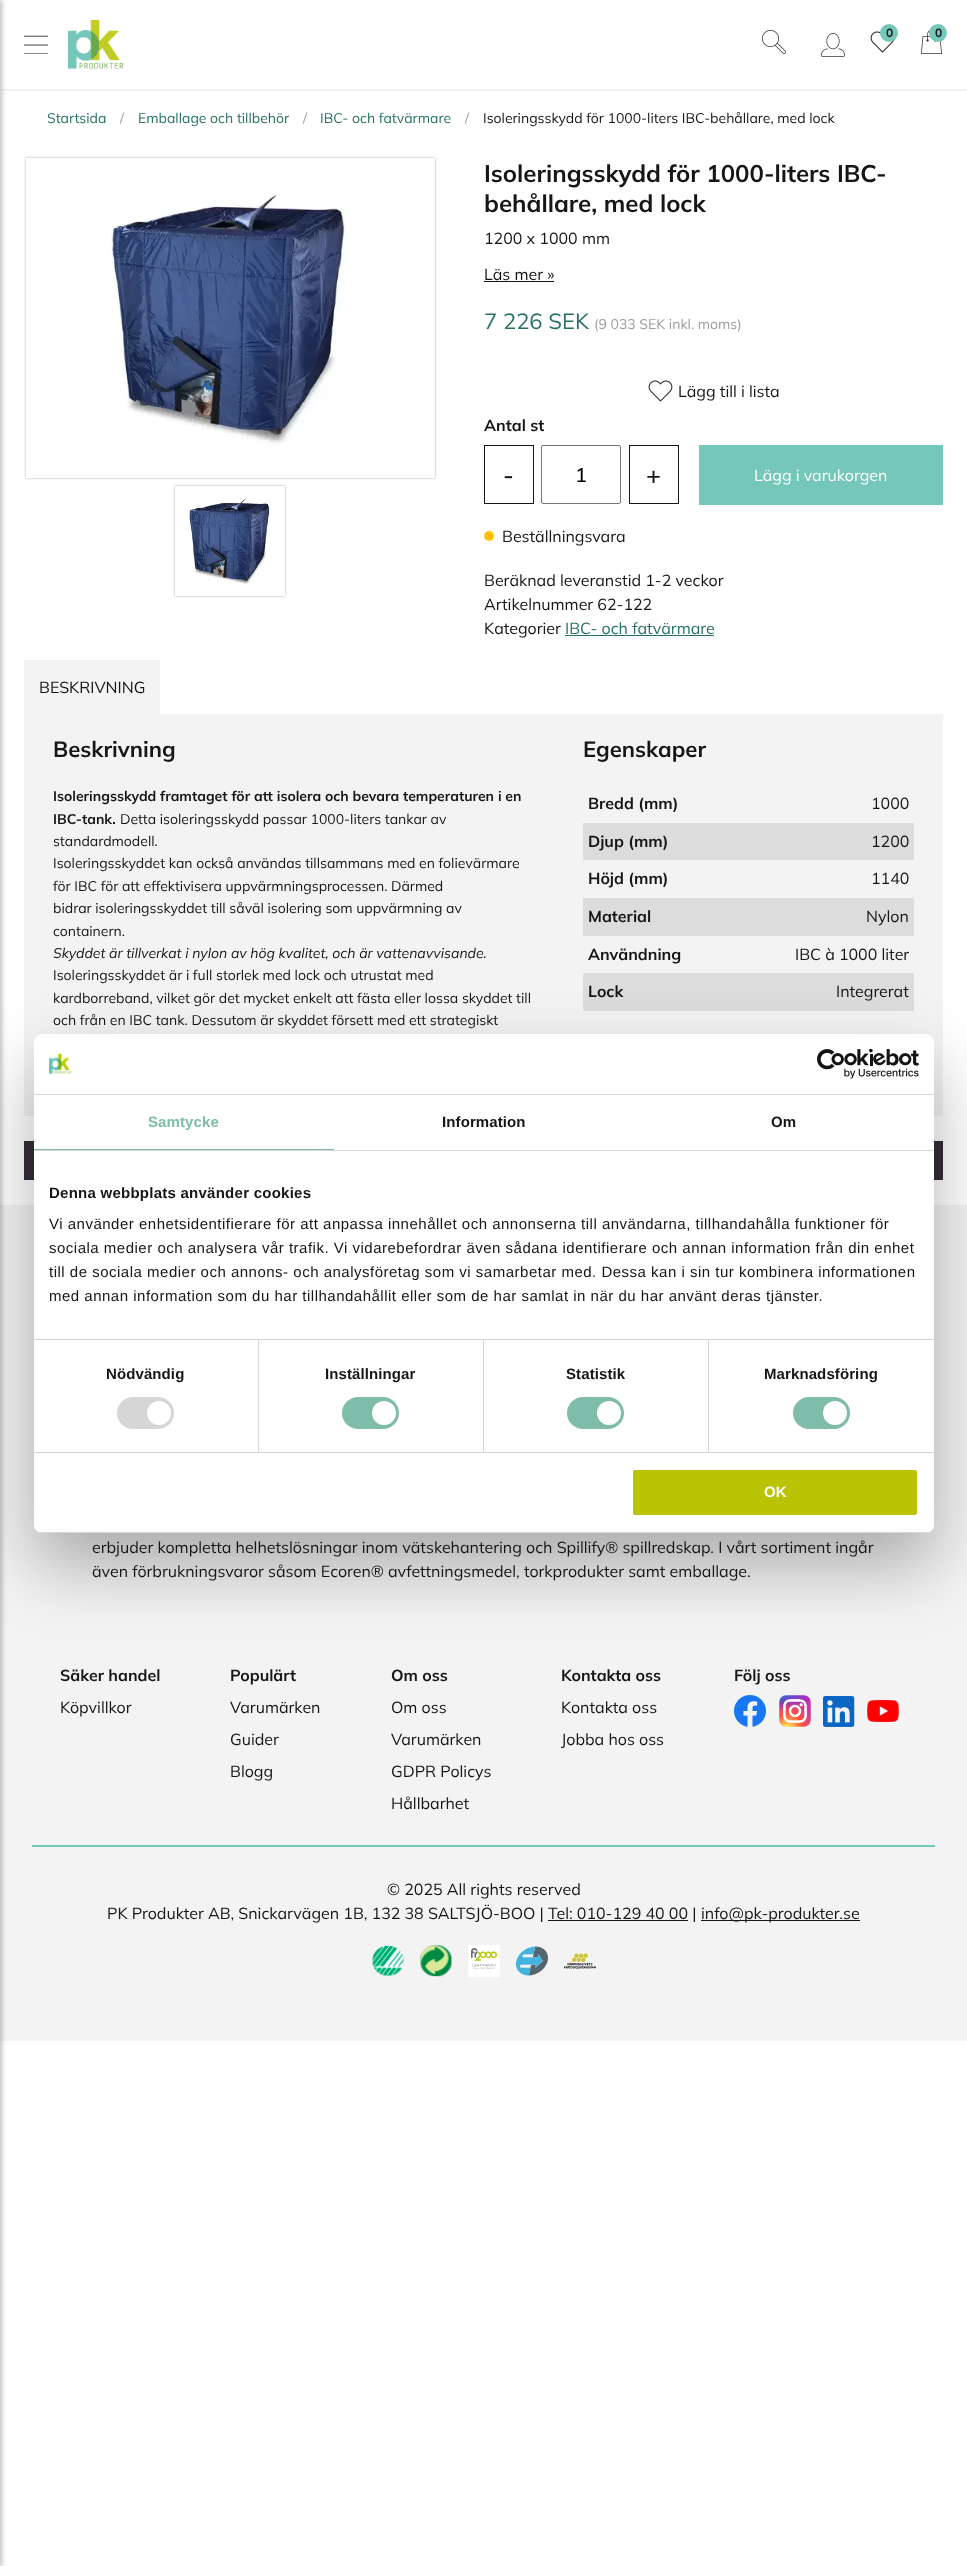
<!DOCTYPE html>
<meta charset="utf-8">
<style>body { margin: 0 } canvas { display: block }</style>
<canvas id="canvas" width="967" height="2566"></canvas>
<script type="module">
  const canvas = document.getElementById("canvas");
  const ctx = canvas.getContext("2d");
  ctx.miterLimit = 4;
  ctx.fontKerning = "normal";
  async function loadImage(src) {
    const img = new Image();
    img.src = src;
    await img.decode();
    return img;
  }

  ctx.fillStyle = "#ffffff";
  ctx.fillRect(0, 0, 967, 2566);
  ctx.save();
  ctx.beginPath();
  ctx.rect(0, 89, 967, 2);
  ctx.clip();
  ctx.fillStyle = "rgba(0, 0, 0, 0.1)";
  ctx.filter = "blur(1.5px)";
  ctx.beginPath();
  ctx.rect(1, 1, 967, 89);
  ctx.fill();
  ctx.filter = "none";
  ctx.restore();
  ctx.fillStyle = "#f3f3f3";
  ctx.fillRect(0, 1205, 967, 836);
  ctx.fillStyle = "rgba(0, 0, 0, 0.25)";
  ctx.filter = "blur(2.5px)";
  ctx.beginPath();
  ctx.rect(-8, 0, 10, 2566);
  ctx.fill();
  ctx.filter = "none";
  ctx.drawImage(await loadImage("img1.png"), 24, 35, 24, 19);
  ctx.drawImage(await loadImage("img2.png"), 68, 20, 55, 49);
  ctx.drawImage(await loadImage("img3.png"), 762, 30, 24, 24);
  ctx.drawImage(await loadImage("img4.png"), 821, 33, 24, 24);
  ctx.drawImage(await loadImage("img5.png"), 870, 31, 24, 22);
  ctx.fillStyle = "#75c7b9";
  ctx.beginPath();
  ctx.arc(889, 33, 9, 0, Math.PI * 2);
  ctx.fill();
  ctx.font = "bold 12px Mulish";
  ctx.fillStyle = "#171518";
  ctx.fillText("0", 886, 37);
  ctx.drawImage(await loadImage("img6.png"), 921, 30, 21, 24);
  ctx.fillStyle = "#75c7b9";
  ctx.beginPath();
  ctx.arc(938, 33, 9, 0, Math.PI * 2);
  ctx.fill();
  ctx.fillStyle = "#171518";
  ctx.fillText("0", 935, 37);
  ctx.font = "14px Mulish";
  ctx.fillStyle = "#287265";
  ctx.fillText("Startsida", 47, 123);
  ctx.fillStyle = "#9c9c9c";
  ctx.fillText("/", 120, 123);
  ctx.fillStyle = "#287265";
  ctx.fillText("Emballage och tillbehör", 138, 123);
  ctx.fillStyle = "#9c9c9c";
  ctx.fillText("/", 303, 123);
  ctx.fillStyle = "#287265";
  ctx.fillText("IBC- och fatvärmare", 320, 123);
  ctx.fillStyle = "#9c9c9c";
  ctx.fillText("/", 465, 123);
  ctx.fillStyle = "#171518";
  ctx.fillText("Isoleringsskydd för 1000-liters IBC-behållare, med lock", 483, 123);
  ctx.save();
  ctx.beginPath();
  ctx.moveTo(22, 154);
  ctx.lineTo(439, 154);
  ctx.lineTo(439, 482);
  ctx.lineTo(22, 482);
  ctx.closePath();
  ctx.moveTo(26, 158);
  ctx.lineTo(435, 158);
  ctx.lineTo(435, 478);
  ctx.lineTo(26, 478);
  ctx.closePath();
  ctx.clip("evenodd");
  ctx.fillStyle = "rgba(0, 0, 0, 0.36)";
  ctx.filter = "blur(1px)";
  ctx.beginPath();
  ctx.rect(26, 158, 409, 320);
  ctx.fill();
  ctx.filter = "none";
  ctx.restore();
  ctx.drawImage(await loadImage("img7.png"), 109, 193, 239, 253);
  ctx.save();
  ctx.beginPath();
  ctx.moveTo(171, 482);
  ctx.lineTo(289, 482);
  ctx.lineTo(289, 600);
  ctx.lineTo(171, 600);
  ctx.closePath();
  ctx.moveTo(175, 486);
  ctx.lineTo(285, 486);
  ctx.lineTo(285, 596);
  ctx.lineTo(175, 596);
  ctx.closePath();
  ctx.clip("evenodd");
  ctx.fillStyle = "rgba(0, 0, 0, 0.36)";
  ctx.filter = "blur(1px)";
  ctx.beginPath();
  ctx.rect(175, 486, 110, 110);
  ctx.fill();
  ctx.filter = "none";
  ctx.restore();
  ctx.drawImage(await loadImage("img8.png"), 189, 498, 81, 87);
  ctx.font = "bold 24px Mulish";
  ctx.fillText("Isoleringsskydd för 1000-liters IBC-", 484, 182);
  ctx.fillText("behållare, med lock", 484, 212);
  ctx.font = "16px Mulish";
  ctx.fillText("1200 x 1000 mm", 484, 244);
  ctx.fillText("Läs mer »", 484, 280);
  ctx.fillRect(484, 281, 70, 1);
  ctx.font = "22px Mulish";
  ctx.fillStyle = "#287265";
  ctx.fillText("7 226 SEK", 484, 329);
  ctx.font = "14px Mulish";
  ctx.fillStyle = "#9c9c9c";
  ctx.fillText("(9 033 SEK inkl. moms)", 594, 329);
  ctx.drawImage(await loadImage("img9.png"), 648, 380, 25, 22);
  ctx.font = "16px Mulish";
  ctx.fillStyle = "#171518";
  ctx.fillText("Lägg till i lista", 678, 397);
  ctx.font = "bold 16px Mulish";
  ctx.fillText("Antal st", 484, 431);
  ctx.strokeStyle = "#171518";
  ctx.strokeRect(484.5, 445.5, 49, 58);
  ctx.font = "600 25px Mulish";
  ctx.fillText("-", 503, 484);
  ctx.beginPath();
  ctx.roundRect(541.5, 445.5, 79, 58, 1.5);
  ctx.strokeStyle = "#767676";
  ctx.stroke();
  ctx.font = "500 20px Mulish";
  ctx.fillStyle = "#000000";
  ctx.fillText("1", 575, 482);
  ctx.strokeStyle = "#171518";
  ctx.strokeRect(629.5, 445.5, 49, 58);
  ctx.font = "600 25px Mulish";
  ctx.fillStyle = "#171518";
  ctx.fillText("+", 646, 484);
  ctx.fillStyle = "#75c7b9";
  ctx.fillRect(699, 445, 244, 60);
  ctx.font = "16px Mulish";
  ctx.fillStyle = "#ffffff";
  ctx.fillText("Lägg i varukorgen", 754, 481);
  ctx.fillStyle = "#ffc107";
  ctx.beginPath();
  ctx.arc(489, 536, 5, 0, Math.PI * 2);
  ctx.fill();
  ctx.fillStyle = "#171518";
  ctx.fillText("Beställningsvara", 502, 542);
  ctx.fillText("Beräknad leveranstid 1-2 veckor", 484, 586);
  ctx.fillText("Artikelnummer 62-122", 484, 610);
  ctx.fillText("Kategorier", 484, 634);
  ctx.fillStyle = "#287265";
  ctx.fillText("IBC- och fatvärmare", 565, 634);
  ctx.fillRect(565, 635, 149, 1);
  ctx.fillStyle = "#f3f3f3";
  ctx.fillRect(24, 660, 136, 54);
  ctx.fillStyle = "#171518";
  ctx.fillText("BESKRIVNING", 39, 693);
  ctx.fillStyle = "#f3f3f3";
  ctx.fillRect(24, 714, 919, 402);
  ctx.font = "bold 22px Mulish";
  ctx.fillStyle = "#171518";
  ctx.fillText("Beskrivning", 53, 757);
  ctx.font = "bold 14px Mulish";
  ctx.fillText("Isoleringsskydd framtaget för att isolera och bevara temperaturen i en", 53, 801);
  ctx.fillText("IBC-tank.", 53, 824);
  ctx.font = "14px Mulish";
  ctx.fillText("Detta isoleringsskydd passar 1000-liters tankar av", 120, 824);
  ctx.fillText("standardmodell.", 53, 846);
  ctx.fillText("Isoleringsskyddet kan också användas tillsammans med en folievärmare", 53, 868);
  ctx.fillText("för IBC för att effektivisera uppvärmningsprocessen. Därmed", 53, 891);
  ctx.fillText("bidrar isoleringsskyddet till såväl isolering som uppvärmning av", 53, 913);
  ctx.fillText("containern.", 53, 936);
  ctx.font = "italic 14px Mulish";
  ctx.fillText("Skyddet är tillverkat i nylon av hög kvalitet, och är vattenavvisande.", 53, 958);
  ctx.font = "14px Mulish";
  ctx.fillText("Isoleringsskyddet är i full storlek med lock och utrustat med", 53, 980);
  ctx.fillText("kardborreband, vilket gör det mycket enkelt att fästa eller lossa skyddet till", 53, 1003);
  ctx.fillText("och från en IBC tank. Dessutom är skyddet försett med ett strategiskt", 53, 1025);
  ctx.font = "bold 22px Mulish";
  ctx.fillText("Egenskaper", 583, 757);
  ctx.font = "bold 16px Mulish";
  ctx.fillText("Bredd (mm)", 588, 809);
  ctx.font = "16px Mulish";
  ctx.fillText("1000", 871, 809);
  ctx.fillStyle = "#dcdcdc";
  ctx.fillRect(583, 823, 331, 37);
  ctx.font = "bold 16px Mulish";
  ctx.fillStyle = "#171518";
  ctx.fillText("Djup (mm)", 588, 847);
  ctx.font = "16px Mulish";
  ctx.fillText("1200", 871, 847);
  ctx.font = "bold 16px Mulish";
  ctx.fillText("Höjd (mm)", 588, 884);
  ctx.font = "16px Mulish";
  ctx.fillText("1140", 871, 884);
  ctx.fillStyle = "#dcdcdc";
  ctx.fillRect(583, 898, 331, 38);
  ctx.font = "bold 16px Mulish";
  ctx.fillStyle = "#171518";
  ctx.fillText("Material", 588, 922);
  ctx.font = "16px Mulish";
  ctx.fillText("Nylon", 866, 922);
  ctx.font = "bold 16px Mulish";
  ctx.fillText("Användning", 588, 960);
  ctx.font = "16px Mulish";
  ctx.fillText("IBC à 1000 liter", 795, 960);
  ctx.fillStyle = "#dcdcdc";
  ctx.fillRect(583, 973, 331, 38);
  ctx.font = "bold 16px Mulish";
  ctx.fillStyle = "#171518";
  ctx.fillText("Lock", 588, 997);
  ctx.font = "16px Mulish";
  ctx.fillText("Integrerat", 836, 997);
  ctx.fillStyle = "#352d39";
  ctx.fillRect(24, 1141, 10, 39);
  ctx.fillRect(934, 1141, 9, 39);
  ctx.fillStyle = "rgba(0, 0, 0, 0.3)";
  ctx.filter = "blur(34px)";
  ctx.beginPath();
  ctx.roundRect(34, 1066, 900, 499, 8);
  ctx.fill();
  ctx.filter = "none";
  ctx.fillStyle = "#ffffff";
  ctx.beginPath();
  ctx.roundRect(34, 1034, 900, 499, 8);
  ctx.fill();
  ctx.fillStyle = "#d6d6d6";
  ctx.fillRect(34, 1094, 900, 1);
  ctx.drawImage(await loadImage("img10.png"), 49, 1053, 22, 22);
  ctx.drawImage(await loadImage("img11.png"), 817, 1049, 102, 30);
  ctx.fillRect(34, 1150, 900, 1);
  ctx.fillStyle = "#7fbcaa";
  ctx.fillRect(34, 1149, 300, 1);
  ctx.letterSpacing = "0.1px";
  ctx.font = "bold 15px Liberation Sans";
  ctx.fillText("Samtycke", 148, 1127);
  ctx.fillStyle = "#171518";
  ctx.fillText("Information", 442, 1127);
  ctx.fillText("Om", 771, 1127);
  ctx.fillStyle = "#d6d6d6";
  ctx.fillRect(34, 1339, 900, 1);
  ctx.letterSpacing = "0.25px";
  ctx.fillStyle = "#171518";
  ctx.fillText("Denna webbplats använder cookies", 49, 1198);
  ctx.letterSpacing = "0.5px";
  ctx.font = "15px Liberation Sans";
  ctx.fillText("Vi använder enhetsidentifierare för att anpassa innehållet och annonserna till användarna, tillhandahålla funktioner för", 49, 1229);
  ctx.fillText("sociala medier och analysera vår trafik. Vi vidarebefordrar även sådana identifierare och annan information från din enhet", 49, 1253);
  ctx.fillText("till de sociala medier och annons- och analysföretag som vi samarbetar med. Dessa kan i sin tur kombinera informationen", 49, 1277);
  ctx.fillText("med annan information som du har tillhandahållit eller som de har samlat in när du har använt deras tjänster.", 49, 1301);
  ctx.fillStyle = "#d6d6d6";
  ctx.fillRect(34, 1452, 900, 1);
  ctx.fillRect(258, 1340, 1, 112);
  ctx.letterSpacing = "0.1px";
  ctx.font = "bold 15px Liberation Sans";
  ctx.fillStyle = "#171518";
  ctx.fillText("Nödvändig", 106, 1379);
  ctx.fillStyle = "#d6d6d6";
  ctx.beginPath();
  ctx.roundRect(117, 1397, 57, 32, 16);
  ctx.fill();
  ctx.fillStyle = "#ffffff";
  ctx.beginPath();
  ctx.arc(159, 1413, 12, 0, Math.PI * 2);
  ctx.fill();
  ctx.fillStyle = "#d6d6d6";
  ctx.fillRect(483, 1340, 1, 112);
  ctx.fillStyle = "#171518";
  ctx.fillText("Inställningar", 325, 1379);
  ctx.fillStyle = "#7fbcaa";
  ctx.beginPath();
  ctx.roundRect(342, 1397, 57, 32, 16);
  ctx.fill();
  ctx.fillStyle = "#ffffff";
  ctx.beginPath();
  ctx.arc(384, 1413, 12, 0, Math.PI * 2);
  ctx.fill();
  ctx.fillStyle = "#d6d6d6";
  ctx.fillRect(708, 1340, 1, 112);
  ctx.fillStyle = "#171518";
  ctx.fillText("Statistik", 566, 1379);
  ctx.fillStyle = "#7fbcaa";
  ctx.beginPath();
  ctx.roundRect(567, 1397, 57, 32, 16);
  ctx.fill();
  ctx.fillStyle = "#ffffff";
  ctx.beginPath();
  ctx.arc(609, 1413, 12, 0, Math.PI * 2);
  ctx.fill();
  ctx.fillStyle = "#171518";
  ctx.fillText("Marknadsföring", 764, 1379);
  ctx.fillStyle = "#7fbcaa";
  ctx.beginPath();
  ctx.roundRect(793, 1397, 57, 32, 16);
  ctx.fill();
  ctx.fillStyle = "#ffffff";
  ctx.beginPath();
  ctx.arc(835, 1413, 12, 0, Math.PI * 2);
  ctx.fill();
  ctx.save();
  ctx.beginPath();
  ctx.roundRect(34, 1034, 900, 499, 8);
  ctx.clip();
  ctx.fillStyle = "#d6d6d6";
  ctx.fillRect(34, 1532, 900, 1);
  ctx.restore();
  ctx.fillStyle = "#bac405";
  ctx.beginPath();
  ctx.roundRect(632, 1469, 286, 47, 3);
  ctx.fill();
  ctx.strokeStyle = "#ffffff";
  ctx.lineWidth = 2;
  ctx.stroke();
  ctx.letterSpacing = "0px";
  ctx.fillStyle = "#ffffff";
  ctx.fillText("OK", 764, 1497);
  ctx.font = "16px Mulish";
  ctx.fillStyle = "#171518";
  ctx.fillText("erbjuder kompletta helhetslösningar inom vätskehantering och Spillify® spillredskap. I vårt sortiment ingår", 92, 1553);
  ctx.fillText("även förbrukningsvaror såsom Ecoren® avfettningsmedel, torkprodukter samt emballage.", 92, 1577);
  ctx.font = "bold 16px Mulish";
  ctx.fillText("Säker handel", 60, 1681);
  ctx.font = "16px Mulish";
  ctx.fillText("Köpvillkor", 60, 1713);
  ctx.font = "bold 16px Mulish";
  ctx.fillText("Populärt", 230, 1681);
  ctx.font = "16px Mulish";
  ctx.fillText("Varumärken", 230, 1713);
  ctx.fillText("Guider", 230, 1745);
  ctx.fillText("Blogg", 230, 1777);
  ctx.font = "bold 16px Mulish";
  ctx.fillText("Om oss", 391, 1681);
  ctx.font = "16px Mulish";
  ctx.fillText("Om oss", 391, 1713);
  ctx.fillText("Varumärken", 391, 1745);
  ctx.fillText("GDPR Policys", 391, 1777);
  ctx.fillText("Hållbarhet", 391, 1809);
  ctx.font = "bold 16px Mulish";
  ctx.fillText("Kontakta oss", 561, 1681);
  ctx.font = "16px Mulish";
  ctx.fillText("Kontakta oss", 561, 1713);
  ctx.fillText("Jobba hos oss", 561, 1745);
  ctx.font = "bold 16px Mulish";
  ctx.fillText("Följ oss", 734, 1681);
  ctx.drawImage(await loadImage("img12.png"), 734, 1695, 32, 32);
  ctx.drawImage(await loadImage("img13.png"), 779, 1695, 32, 32);
  ctx.drawImage(await loadImage("img14.png"), 823, 1696, 32, 31);
  ctx.drawImage(await loadImage("img15.png"), 867, 1700, 32, 22);
  ctx.fillStyle = "#75c7b9";
  ctx.fillRect(32, 1845, 903, 2);
  ctx.font = "16px Mulish";
  ctx.fillStyle = "#171518";
  ctx.fillText("© 2025 All rights reserved", 387, 1895);
  ctx.fillText("PK Produkter AB, Snickarvägen 1B, 132 38 SALTSJÖ-BOO | Tel: 010-129 40 00 |", 107, 1919);
  ctx.fillRect(701, 1920, 159, 1);
  ctx.fillText("info@pk-produkter.se", 701, 1919);
  ctx.fillRect(548, 1920, 140, 1);
  ctx.drawImage(await loadImage("img16.png"), 372, 1945, 32, 31);
  ctx.drawImage(await loadImage("img17.png"), 420, 1945, 32, 32);
  ctx.drawImage(await loadImage("img18.png"), 468, 1945, 32, 32);
  ctx.drawImage(await loadImage("img19.png"), 516, 1946, 32, 30);
  ctx.drawImage(await loadImage("img20.png"), 564, 1953, 32, 16);
</script>
